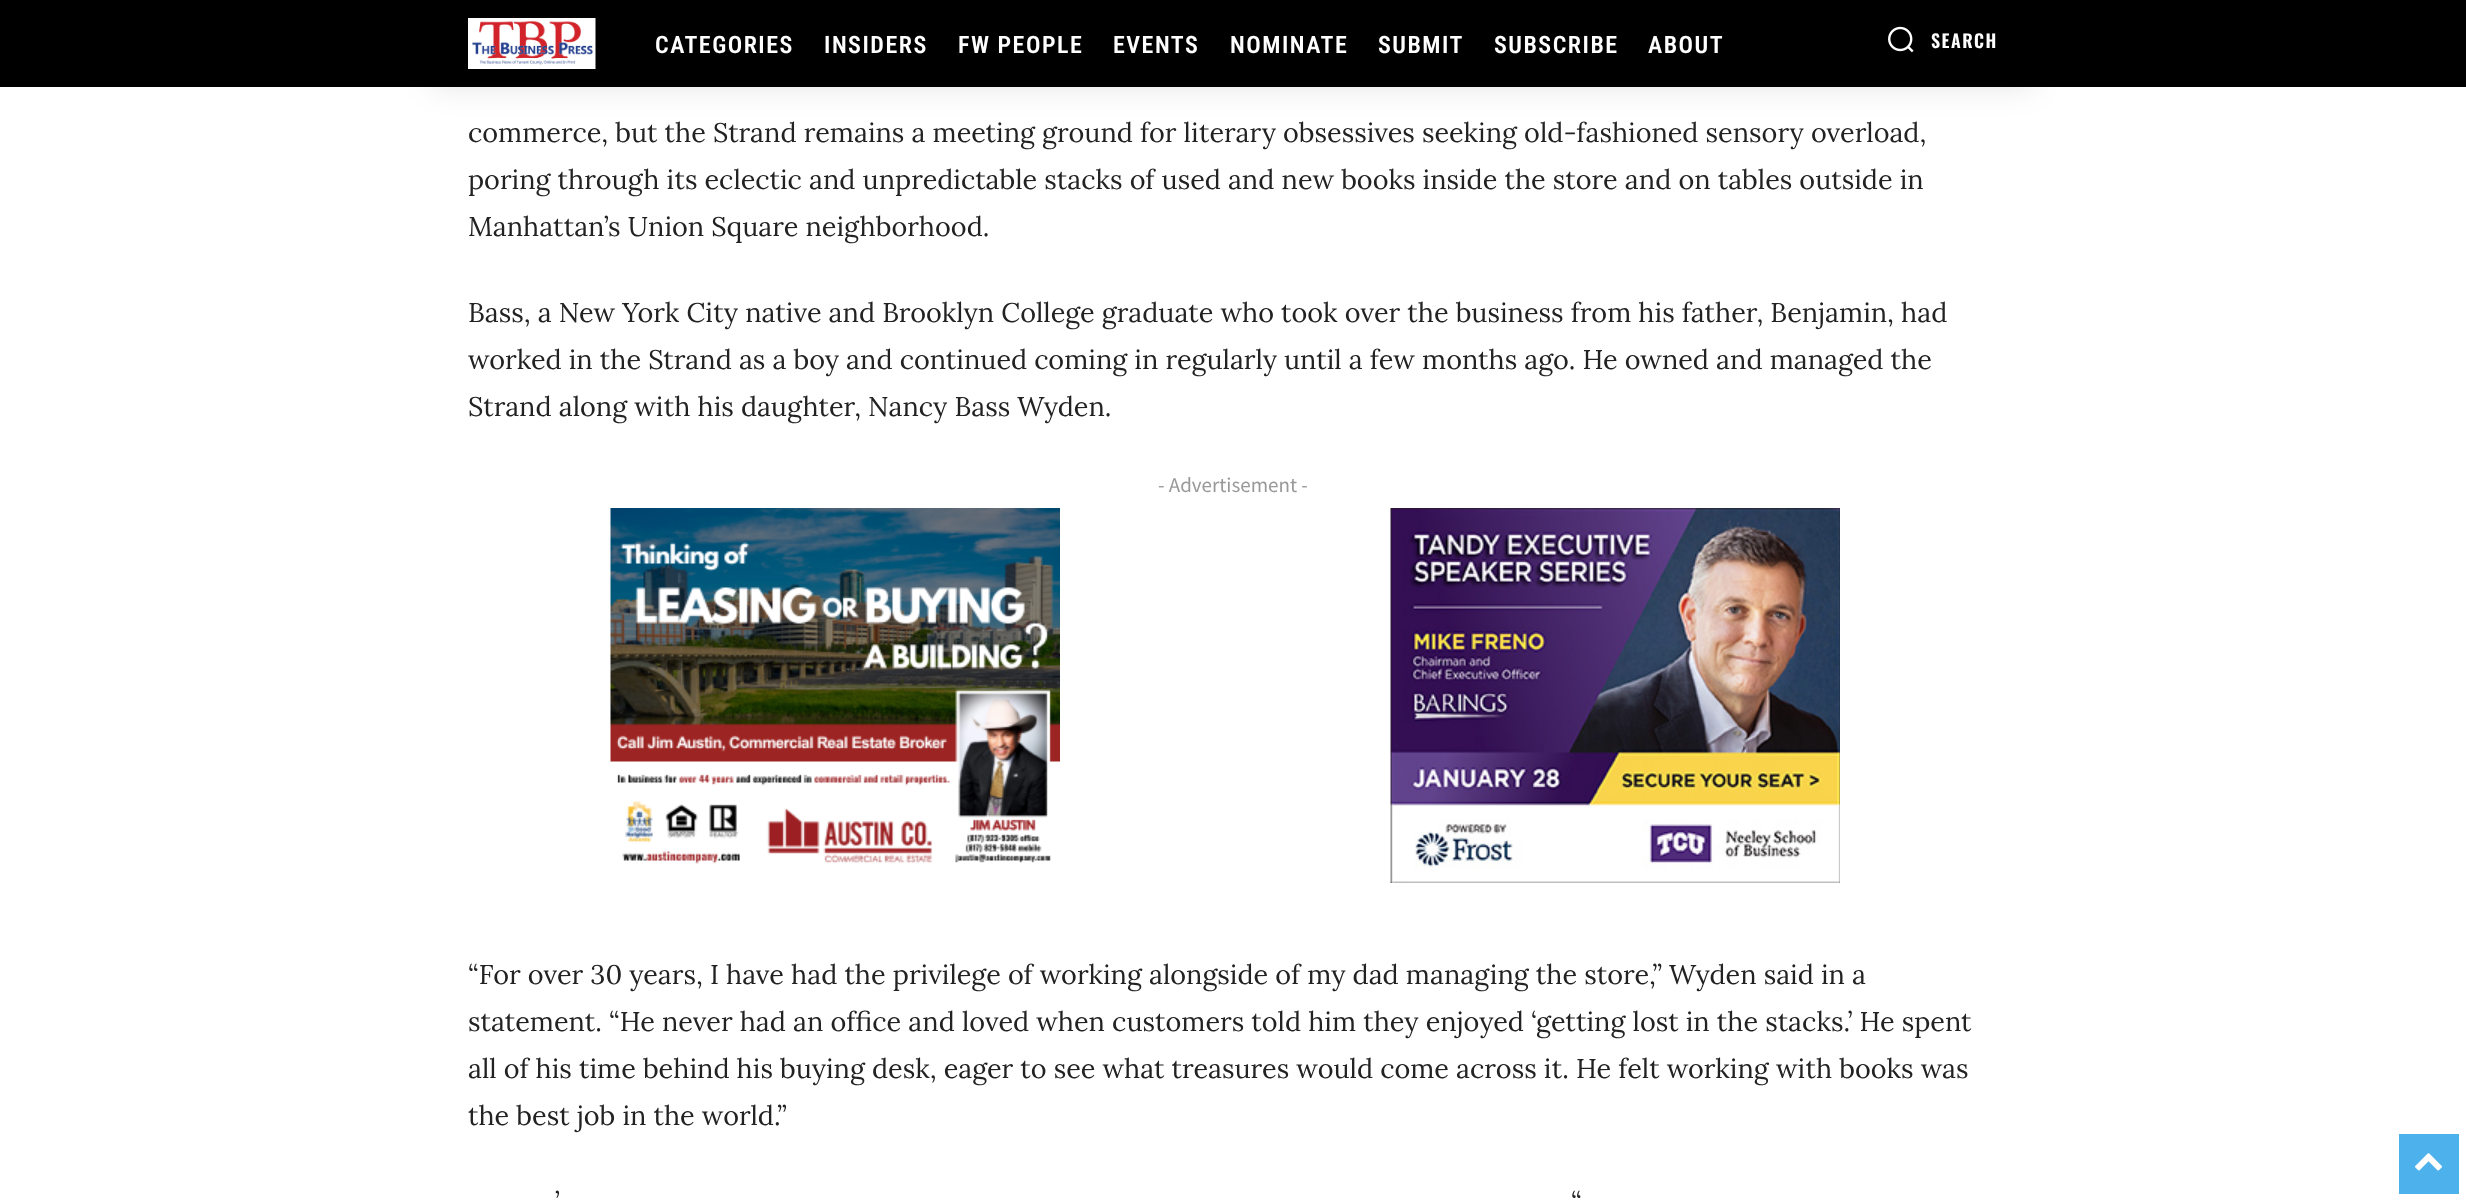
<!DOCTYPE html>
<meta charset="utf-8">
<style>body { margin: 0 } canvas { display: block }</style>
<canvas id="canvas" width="2466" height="1200"></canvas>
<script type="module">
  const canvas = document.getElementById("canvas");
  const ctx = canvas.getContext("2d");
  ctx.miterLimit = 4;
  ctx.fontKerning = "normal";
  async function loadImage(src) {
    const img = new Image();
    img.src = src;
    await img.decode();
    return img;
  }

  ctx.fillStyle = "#ffffff";
  ctx.fillRect(0, 0, 2466, 1200);
  ctx.fillStyle = "#000000";
  ctx.fillRect(0, 0, 2466, 87);
  ctx.save();
  ctx.beginPath();
  ctx.moveTo(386, 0);
  ctx.lineTo(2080, 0);
  ctx.lineTo(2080, 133);
  ctx.lineTo(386, 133);
  ctx.closePath();
  ctx.moveTo(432, 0);
  ctx.lineTo(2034, 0);
  ctx.lineTo(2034, 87);
  ctx.lineTo(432, 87);
  ctx.closePath();
  ctx.clip("evenodd");
  ctx.fillStyle = "rgba(0, 0, 0, 0.1)";
  ctx.filter = "blur(15px)";
  ctx.beginPath();
  ctx.rect(432, 0, 1602, 87);
  ctx.fill();
  ctx.filter = "none";
  ctx.restore();
  ctx.drawImage(await loadImage("img1.png"), 468, 18, 128, 51);
  ctx.letterSpacing = "1.5px";
  ctx.font = "600 24px Roboto Condensed";
  ctx.fillStyle = "#ffffff";
  ctx.fillText("CATEGORIES", 655, 53);
  ctx.fillText("INSIDERS", 824, 53);
  ctx.fillText("FW PEOPLE", 958, 53);
  ctx.fillText("EVENTS", 1113, 53);
  ctx.fillText("NOMINATE", 1230, 53);
  ctx.fillText("SUBMIT", 1378, 53);
  ctx.fillText("SUBSCRIBE", 1494, 53);
  ctx.fillText("ABOUT", 1648, 53);
  ctx.drawImage(await loadImage("img2.png"), 1888, 26, 26, 27);
  ctx.font = "600 18px Oswald";
  ctx.fillText("SEARCH", 1931, 48);
  ctx.letterSpacing = "0px";
  ctx.font = "27px Lora";
  ctx.fillStyle = "#222222";
  ctx.fillText("commerce, but the Strand remains a meeting ground for literary obsessives seeking old-fashioned sensory overload,", 468, 142);
  ctx.fillText("poring through its eclectic and unpredictable stacks of used and new books inside the store and on tables outside in", 468, 189);
  ctx.fillText("Manhattan’s Union Square neighborhood.", 468, 236);
  ctx.fillText("Bass, a New York City native and Brooklyn College graduate who took over the business from his father, Benjamin, had", 468, 322);
  ctx.fillText("worked in the Strand as a boy and continued coming in regularly until a few months ago. He owned and managed the", 468, 369);
  ctx.fillText("Strand along with his daughter, Nancy Bass Wyden.", 468, 416);
  ctx.font = "21px Source Sans Pro";
  ctx.fillStyle = "#999999";
  ctx.fillText("- Advertisement -", 1158, 492);
  ctx.drawImage(await loadImage("img3.png"), 610, 508, 450, 356);
  ctx.drawImage(await loadImage("img4.png"), 1390, 508, 450, 375);
  ctx.font = "27px Lora";
  ctx.fillStyle = "#222222";
  ctx.fillText("“For over 30 years, I have had the privilege of working alongside of my dad managing the store,” Wyden said in a", 468, 984);
  ctx.fillText("statement. “He never had an office and loved when customers told him they enjoyed ‘getting lost in the stacks.’ He spent", 468, 1031);
  ctx.fillText("all of his time behind his buying desk, eager to see what treasures would come across it. He felt working with books was", 468, 1078);
  ctx.fillText("the best job in the world.”", 468, 1125);
  ctx.fillText("’", 555, 1211);
  ctx.fillText("“", 1571, 1211);
  ctx.fillStyle = "#4db2ec";
  ctx.fillRect(2399, 1134, 60, 60);
  ctx.drawImage(await loadImage("img5.png"), 2415, 1153, 27, 18);
</script>
